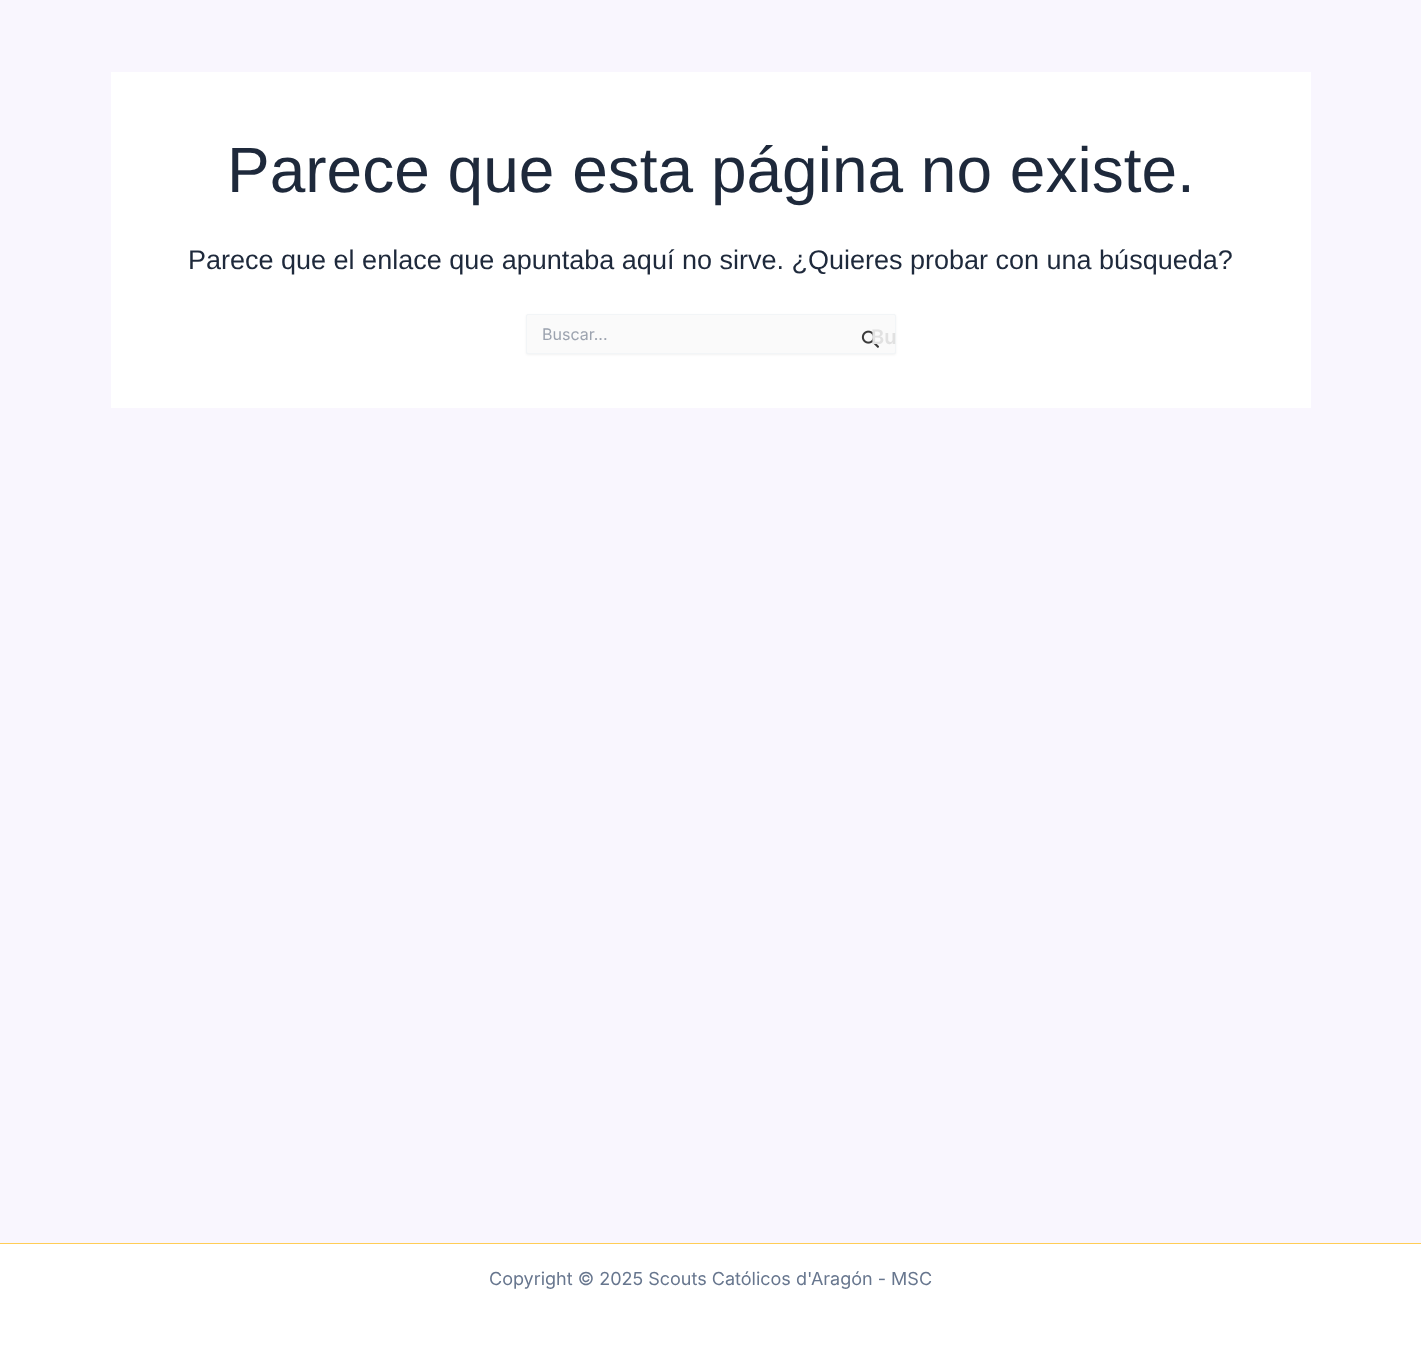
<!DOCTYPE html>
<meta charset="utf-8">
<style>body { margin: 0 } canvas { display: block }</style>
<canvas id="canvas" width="1421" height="1364"></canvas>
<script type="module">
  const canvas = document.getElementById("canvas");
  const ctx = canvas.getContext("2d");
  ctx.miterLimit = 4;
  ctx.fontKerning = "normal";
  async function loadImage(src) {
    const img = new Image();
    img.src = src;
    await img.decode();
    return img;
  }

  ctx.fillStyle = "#f9f6fe";
  ctx.fillRect(0, 0, 1421, 1364);
  ctx.fillStyle = "#ffffff";
  ctx.fillRect(111, 72, 1200, 336);
  ctx.font = "64px Liberation Sans";
  ctx.fillStyle = "#1e293b";
  ctx.fillText("Parece que esta página no existe.", 227, 192);
  ctx.font = "27px Liberation Sans";
  ctx.fillText("Parece que el enlace que apuntaba aquí no sirve. ¿Quieres probar con una búsqueda?", 188, 269);
  ctx.fillStyle = "rgba(0, 0, 0, 0.05)";
  ctx.filter = "blur(1px)";
  ctx.beginPath();
  ctx.roundRect(526, 315, 370, 40, 2);
  ctx.fill();
  ctx.filter = "none";
  ctx.fillStyle = "#fafafa";
  ctx.beginPath();
  ctx.roundRect(526.5, 314.5, 369, 39, 1.5);
  ctx.fill();
  ctx.strokeStyle = "#f2f5f7";
  ctx.stroke();
  ctx.font = "16px Inter";
  ctx.fillStyle = "#9ca3af";
  ctx.fillText("Buscar...", 542, 340);
  ctx.drawImage(await loadImage("img1.png"), 861, 330, 18, 18);
  ctx.font = "600 20px Inter";
  ctx.fillStyle = "#e1e1e1";
  ctx.fillText("Bu", 871, 344);
  ctx.fillStyle = "#ffffff";
  ctx.fillRect(0, 1244, 1421, 120);
  ctx.fillStyle = "#ffcd57";
  ctx.fillRect(0, 1243, 1421, 1);
  ctx.font = "18px Inter";
  ctx.fillStyle = "#67768e";
  ctx.fillText("Copyright © 2025 Scouts Católicos d'Aragón - MSC", 489, 1285);
</script>
